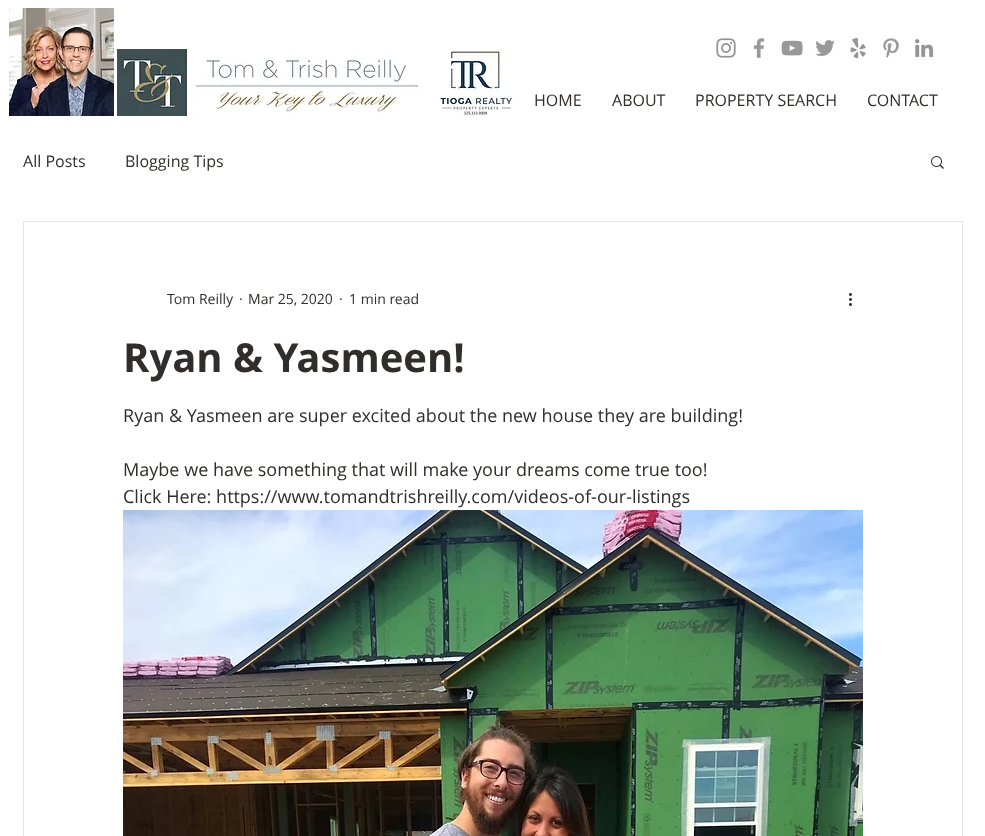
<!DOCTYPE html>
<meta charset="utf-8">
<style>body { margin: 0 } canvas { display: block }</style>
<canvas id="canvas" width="985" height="836"></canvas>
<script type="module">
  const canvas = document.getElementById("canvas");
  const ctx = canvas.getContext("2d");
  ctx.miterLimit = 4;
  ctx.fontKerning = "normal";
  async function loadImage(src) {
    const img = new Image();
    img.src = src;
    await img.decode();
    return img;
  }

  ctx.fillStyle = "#ffffff";
  ctx.fillRect(0, 0, 985, 836);
  ctx.drawImage(await loadImage("img1.png"), 9, 8, 105, 108);
  ctx.drawImage(await loadImage("img2.png"), 117, 49, 396, 67);
  ctx.drawImage(await loadImage("img3.png"), 716, 38, 20, 20);
  ctx.drawImage(await loadImage("img4.png"), 753, 38, 12, 20);
  ctx.drawImage(await loadImage("img5.png"), 781, 40, 22, 16);
  ctx.drawImage(await loadImage("img6.png"), 815, 40, 20, 17);
  ctx.drawImage(await loadImage("img7.png"), 850, 38, 16, 21);
  ctx.drawImage(await loadImage("img8.png"), 883, 38, 16, 20);
  ctx.drawImage(await loadImage("img9.png"), 914, 39, 20, 19);
  ctx.font = "16px Open Sans";
  ctx.fillStyle = "#302d2b";
  ctx.fillText("HOME", 534, 106);
  ctx.fillText("ABOUT", 612, 106);
  ctx.fillText("PROPERTY SEARCH", 695, 106);
  ctx.fillText("CONTACT", 867, 106);
  ctx.fillText("All Posts", 23, 167);
  ctx.fillText("Blogging Tips", 125, 167);
  ctx.drawImage(await loadImage("img10.png"), 931, 156, 13, 13);
  ctx.strokeStyle = "#e4e4e4";
  ctx.strokeRect(23.5, 221.5, 939, 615);
  ctx.font = "14px Open Sans";
  ctx.fillText("Tom Reilly", 167, 304);
  ctx.fillText("·", 239, 304);
  ctx.fillText("Mar 25, 2020", 248, 304);
  ctx.fillText("·", 339, 304);
  ctx.fillText("1 min read", 349, 304);
  ctx.drawImage(await loadImage("img11.png"), 849, 293, 3, 13);
  ctx.font = "bold 40px Open Sans";
  ctx.fillText("Ryan & Yasmeen!", 123, 372);
  ctx.font = "18px Open Sans";
  ctx.fillText("Ryan & Yasmeen are super excited about the new house they are building!", 123, 422);
  ctx.fillText("Maybe we have something that will make your dreams come true too!", 123, 476);
  ctx.fillText("Click Here: https://www.tomandtrishreilly.com/videos-of-our-listings", 123, 503);
  ctx.drawImage(await loadImage("img12.png"), 123, 510, 740, 326);
</script>
